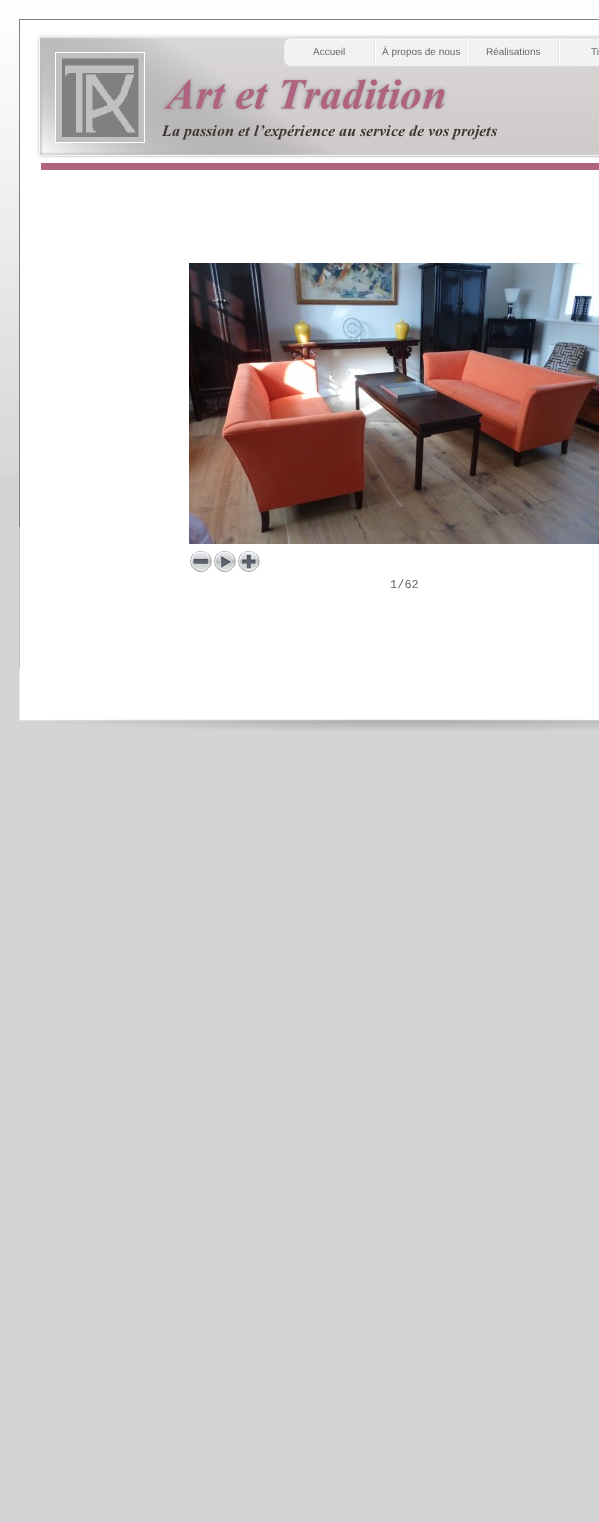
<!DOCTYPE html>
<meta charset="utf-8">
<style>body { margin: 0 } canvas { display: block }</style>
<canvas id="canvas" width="599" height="1522"></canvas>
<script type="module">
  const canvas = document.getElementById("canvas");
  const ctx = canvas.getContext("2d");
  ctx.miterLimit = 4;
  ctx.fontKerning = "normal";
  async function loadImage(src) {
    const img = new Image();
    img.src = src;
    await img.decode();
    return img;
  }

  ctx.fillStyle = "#d5d4d4";
  ctx.fillRect(0, 0, 599, 1522);
  ctx.drawImage(await loadImage("img1.png"), 0, 0, 599, 474);
  ctx.drawImage(await loadImage("img2.png"), 19, 19, 580, 712);
  ctx.drawImage(await loadImage("img3.png"), 55, 52, 90, 91);
  ctx.drawImage(await loadImage("img4.png"), 283, 37, 92, 30);
  ctx.font = "10px Liberation Sans";
  ctx.fillStyle = "#666666";
  ctx.fillText("Accueil", 313, 55);
  ctx.drawImage(await loadImage("img5.png"), 375, 37, 92, 30);
  ctx.fillText("À propos de nous", 382, 55);
  ctx.drawImage(await loadImage("img5.png"), 467, 37, 92, 30);
  ctx.fillText("Réalisations", 486, 55);
  ctx.drawImage(await loadImage("img6.png"), 559, 37, 40, 30);
  ctx.fillText("Ti", 591, 55);
  ctx.drawImage(await loadImage("img7.png"), 162, 125, 335, 15);
  ctx.fillStyle = "#af6381";
  ctx.fillRect(41, 163, 558, 7);
  ctx.drawImage(await loadImage("img8.png"), 189, 263, 410, 281);
  ctx.drawImage(await loadImage("img9.png"), 190, 550, 22, 22);
  ctx.drawImage(await loadImage("img10.png"), 214, 550, 22, 22);
  ctx.drawImage(await loadImage("img11.png"), 238, 550, 22, 22);
  ctx.font = "12px Liberation Mono";
  ctx.fillStyle = "#666666";
  ctx.fillText("1/62", 390, 588);
</script>
